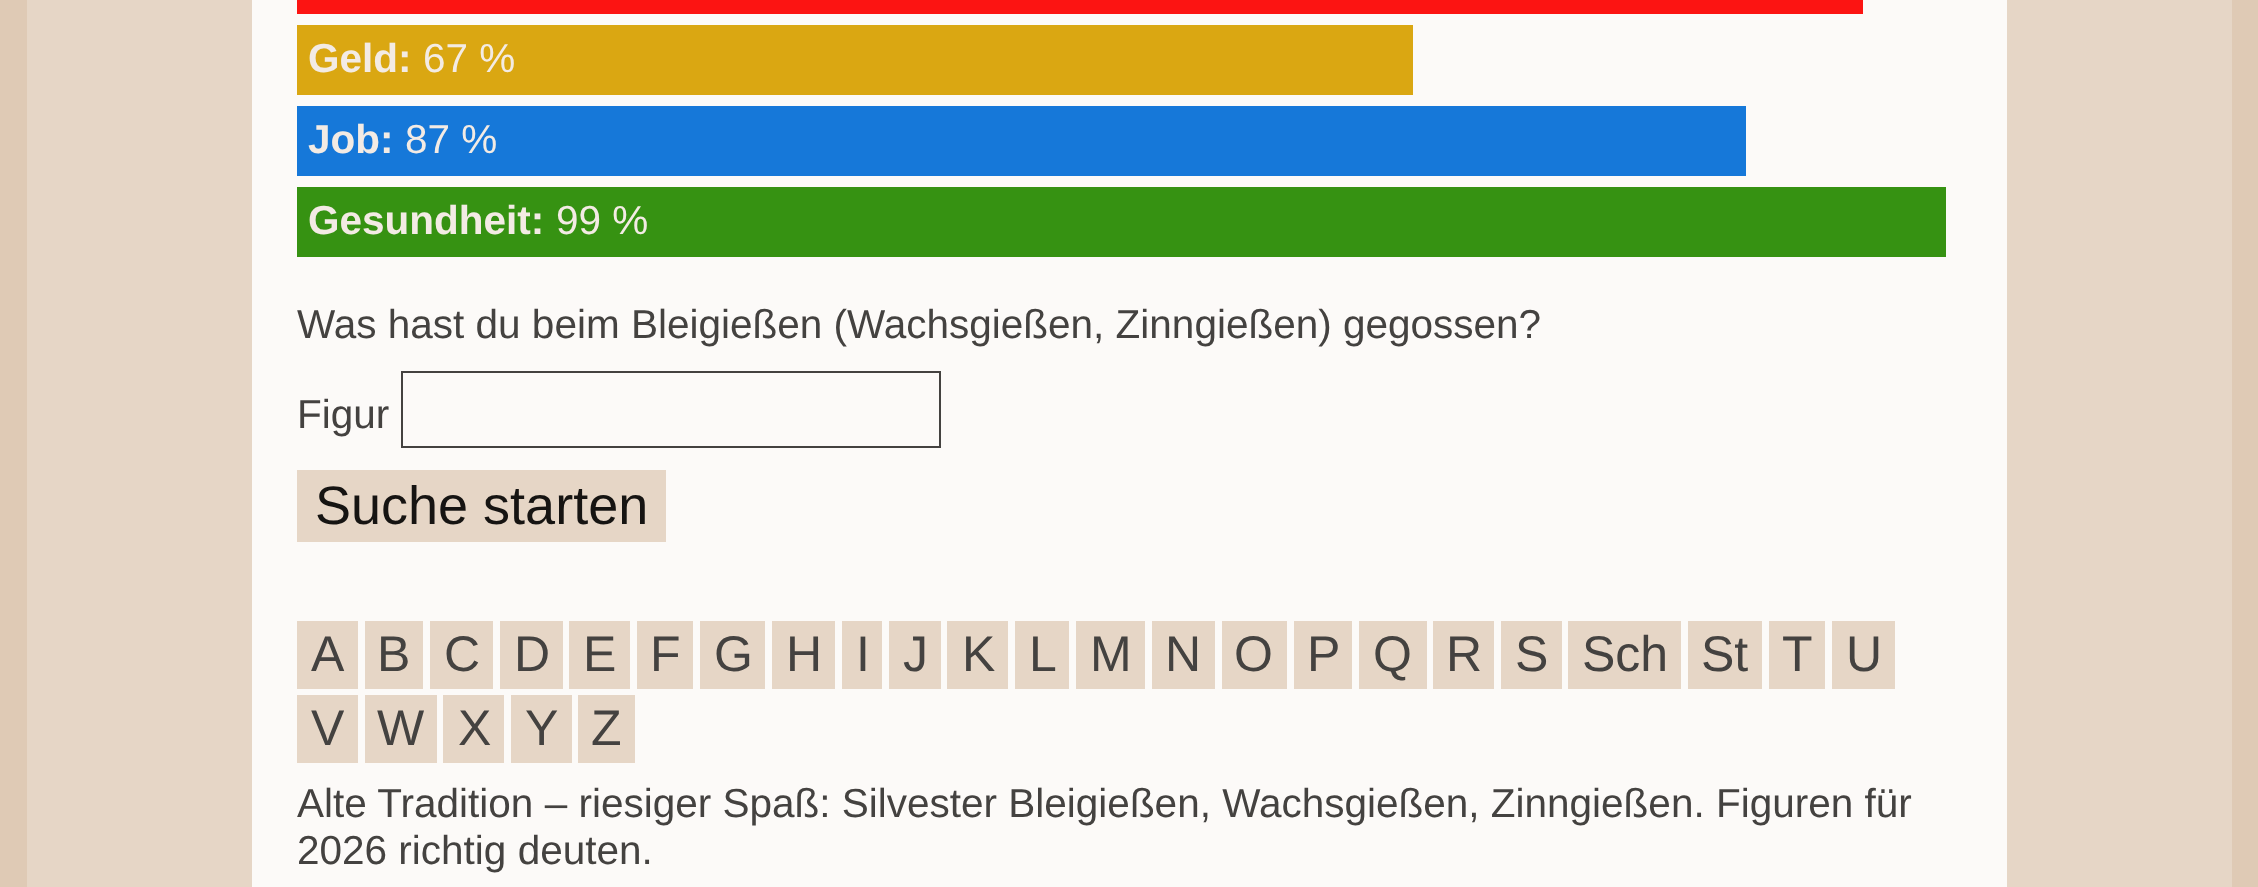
<!DOCTYPE html>
<meta charset="utf-8">
<style>body { margin: 0 } canvas { display: block }</style>
<canvas id="canvas" width="2258" height="887"></canvas>
<script type="module">
  const canvas = document.getElementById("canvas");
  const ctx = canvas.getContext("2d");
  ctx.miterLimit = 4;
  ctx.fontKerning = "normal";

  ctx.fillStyle = "#dfcab5";
  ctx.fillRect(0, 0, 2258, 887);
  ctx.fillStyle = "#fcfaf8";
  ctx.fillRect(252, 0, 1755, 887);
  ctx.fillStyle = "#e6d6c6";
  ctx.fillRect(2007, 0, 225, 887);
  ctx.fillRect(27, 0, 225, 887);
  ctx.fillStyle = "#fc1412";
  ctx.fillRect(297, 0, 1566, 14);
  ctx.fillStyle = "#daa712";
  ctx.fillRect(297, 25, 1116, 70);
  ctx.font = "bold 40.5px Liberation Sans";
  ctx.fillStyle = "#f3ebe4";
  ctx.fillText("Geld:", 308, 72);
  ctx.font = "40.5px Liberation Sans";
  ctx.fillText("67 %", 423, 72);
  ctx.fillStyle = "#1678d9";
  ctx.fillRect(297, 106, 1449, 70);
  ctx.font = "bold 40.5px Liberation Sans";
  ctx.fillStyle = "#f3ebe4";
  ctx.fillText("Job:", 308, 153);
  ctx.font = "40.5px Liberation Sans";
  ctx.fillText("87 %", 405, 153);
  ctx.fillStyle = "#369212";
  ctx.fillRect(297, 187, 1649, 70);
  ctx.font = "bold 40.5px Liberation Sans";
  ctx.fillStyle = "#f3ebe4";
  ctx.fillText("Gesundheit:", 308, 234);
  ctx.font = "40.5px Liberation Sans";
  ctx.fillText("99 %", 556, 234);
  ctx.fillStyle = "#444240";
  ctx.fillText("Was hast du beim Bleigießen (Wachsgießen, Zinngießen) gegossen?", 297, 338);
  ctx.fillText("Figur", 297, 428);
  ctx.strokeStyle = "#444240";
  ctx.lineWidth = 2;
  ctx.strokeRect(402, 372, 538, 75);
  ctx.fillStyle = "#e6d6c6";
  ctx.fillRect(297, 470, 369, 72);
  ctx.font = "54px Liberation Sans";
  ctx.fillStyle = "#161412";
  ctx.fillText("Suche starten", 315, 524);
  ctx.fillStyle = "#e6d6c6";
  ctx.fillRect(297, 621, 61, 68);
  ctx.font = "50px Liberation Sans";
  ctx.fillStyle = "#444240";
  ctx.fillText("A", 311, 671);
  ctx.fillStyle = "#e6d6c6";
  ctx.fillRect(365, 621, 58, 68);
  ctx.fillStyle = "#444240";
  ctx.fillText("B", 377, 671);
  ctx.fillStyle = "#e6d6c6";
  ctx.fillRect(430, 621, 63, 68);
  ctx.fillStyle = "#444240";
  ctx.fillText("C", 444, 671);
  ctx.fillStyle = "#e6d6c6";
  ctx.fillRect(500, 621, 63, 68);
  ctx.fillStyle = "#444240";
  ctx.fillText("D", 514, 671);
  ctx.fillStyle = "#e6d6c6";
  ctx.fillRect(569, 621, 61, 68);
  ctx.fillStyle = "#444240";
  ctx.fillText("E", 583, 671);
  ctx.fillStyle = "#e6d6c6";
  ctx.fillRect(637, 621, 56, 68);
  ctx.fillStyle = "#444240";
  ctx.fillText("F", 650, 671);
  ctx.fillStyle = "#e6d6c6";
  ctx.fillRect(700, 621, 65, 68);
  ctx.fillStyle = "#444240";
  ctx.fillText("G", 714, 671);
  ctx.fillStyle = "#e6d6c6";
  ctx.fillRect(772, 621, 63, 68);
  ctx.fillStyle = "#444240";
  ctx.fillText("H", 786, 671);
  ctx.fillStyle = "#e6d6c6";
  ctx.fillRect(842, 621, 40, 68);
  ctx.fillStyle = "#444240";
  ctx.fillText("I", 856, 671);
  ctx.fillStyle = "#e6d6c6";
  ctx.fillRect(889, 621, 52, 68);
  ctx.fillStyle = "#444240";
  ctx.fillText("J", 903, 671);
  ctx.fillStyle = "#e6d6c6";
  ctx.fillRect(947, 621, 61, 68);
  ctx.fillStyle = "#444240";
  ctx.fillText("K", 962, 671);
  ctx.fillStyle = "#e6d6c6";
  ctx.fillRect(1015, 621, 54, 68);
  ctx.fillStyle = "#444240";
  ctx.fillText("L", 1029, 671);
  ctx.fillStyle = "#e6d6c6";
  ctx.fillRect(1076, 621, 69, 68);
  ctx.fillStyle = "#444240";
  ctx.fillText("M", 1090, 671);
  ctx.fillStyle = "#e6d6c6";
  ctx.fillRect(1152, 621, 63, 68);
  ctx.fillStyle = "#444240";
  ctx.fillText("N", 1165, 671);
  ctx.fillStyle = "#e6d6c6";
  ctx.fillRect(1222, 621, 65, 68);
  ctx.fillStyle = "#444240";
  ctx.fillText("O", 1234, 671);
  ctx.fillStyle = "#e6d6c6";
  ctx.fillRect(1294, 621, 58, 68);
  ctx.fillStyle = "#444240";
  ctx.fillText("P", 1307, 671);
  ctx.fillStyle = "#e6d6c6";
  ctx.fillRect(1359, 621, 68, 68);
  ctx.fillStyle = "#444240";
  ctx.fillText("Q", 1373, 671);
  ctx.fillStyle = "#e6d6c6";
  ctx.fillRect(1433, 621, 61, 68);
  ctx.fillStyle = "#444240";
  ctx.fillText("R", 1446, 671);
  ctx.fillStyle = "#e6d6c6";
  ctx.fillRect(1501, 621, 61, 68);
  ctx.fillStyle = "#444240";
  ctx.fillText("S", 1515, 671);
  ctx.fillStyle = "#e6d6c6";
  ctx.fillRect(1568, 621, 113, 68);
  ctx.fillStyle = "#444240";
  ctx.fillText("Sch", 1582, 671);
  ctx.fillStyle = "#e6d6c6";
  ctx.fillRect(1688, 621, 74, 68);
  ctx.fillStyle = "#444240";
  ctx.fillText("St", 1701, 671);
  ctx.fillStyle = "#e6d6c6";
  ctx.fillRect(1769, 621, 56, 68);
  ctx.fillStyle = "#444240";
  ctx.fillText("T", 1782, 671);
  ctx.fillStyle = "#e6d6c6";
  ctx.fillRect(1832, 621, 63, 68);
  ctx.fillStyle = "#444240";
  ctx.fillText("U", 1846, 671);
  ctx.fillStyle = "#e6d6c6";
  ctx.fillRect(297, 695, 61, 68);
  ctx.fillStyle = "#444240";
  ctx.fillText("V", 311, 745);
  ctx.fillStyle = "#e6d6c6";
  ctx.fillRect(365, 695, 72, 68);
  ctx.fillStyle = "#444240";
  ctx.fillText("W", 377, 745);
  ctx.fillStyle = "#e6d6c6";
  ctx.fillRect(443, 695, 61, 68);
  ctx.fillStyle = "#444240";
  ctx.fillText("X", 458, 745);
  ctx.fillStyle = "#e6d6c6";
  ctx.fillRect(511, 695, 61, 68);
  ctx.fillStyle = "#444240";
  ctx.fillText("Y", 525, 745);
  ctx.fillStyle = "#e6d6c6";
  ctx.fillRect(578, 695, 57, 68);
  ctx.fillStyle = "#444240";
  ctx.fillText("Z", 591, 745);
  ctx.font = "40.5px Liberation Sans";
  ctx.fillText("Alte Tradition – riesiger Spaß: Silvester Bleigießen, Wachsgießen, Zinngießen. Figuren für", 297, 817);
  ctx.fillText("2026 richtig deuten.", 297, 864);
</script>
